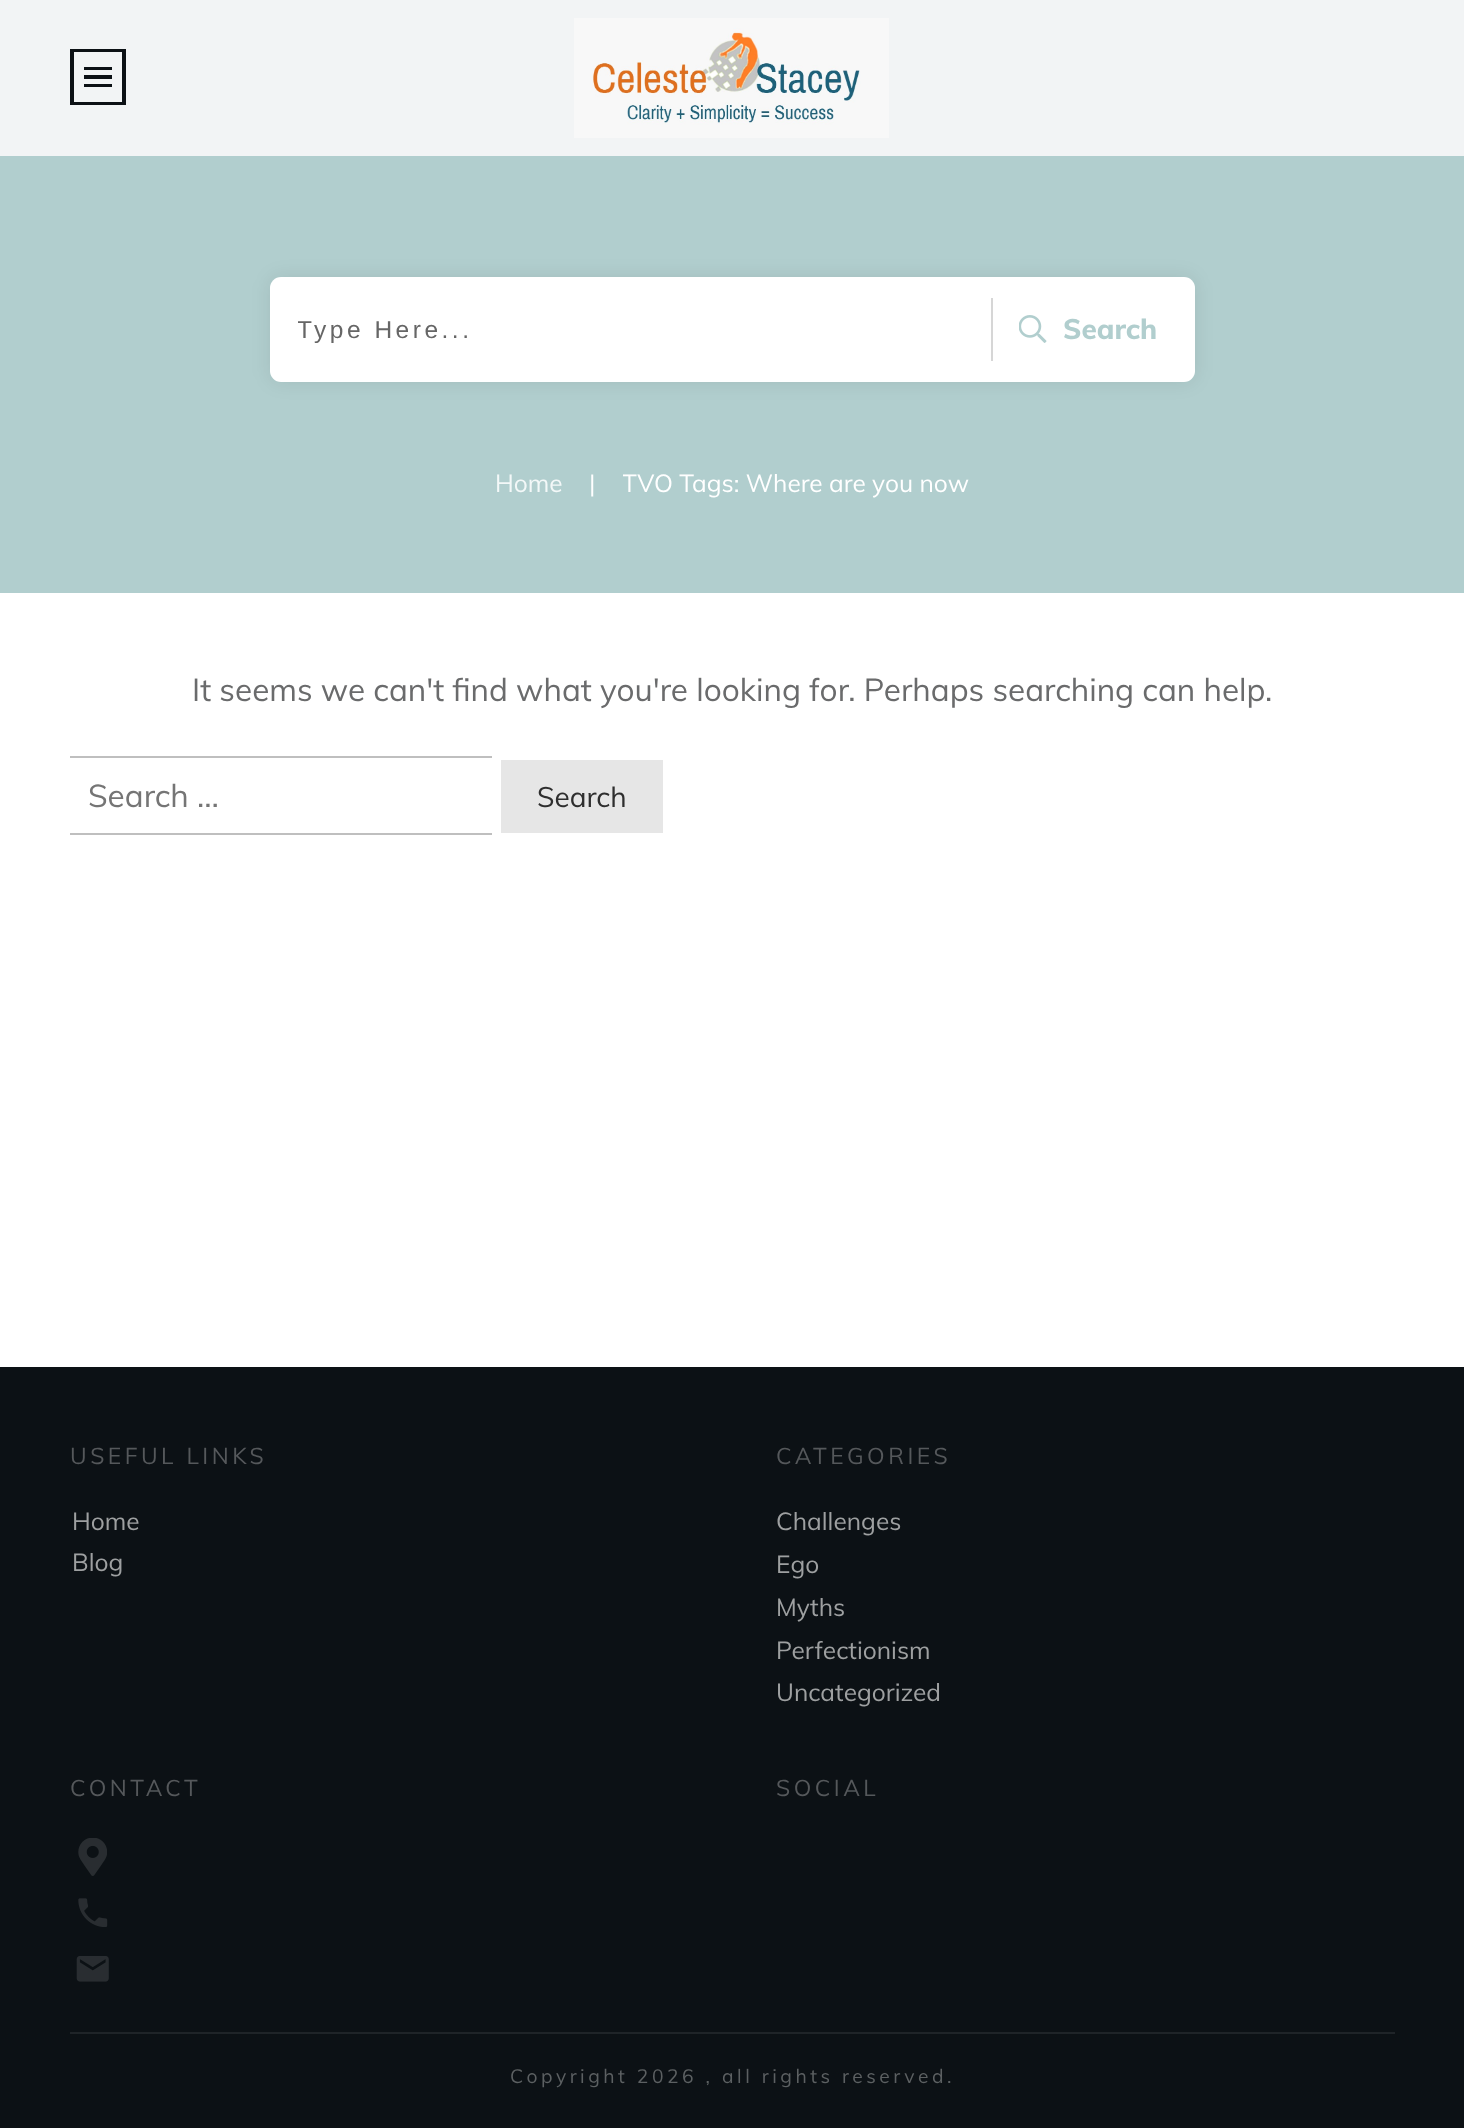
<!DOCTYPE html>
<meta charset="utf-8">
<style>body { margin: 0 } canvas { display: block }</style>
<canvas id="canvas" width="1464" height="2128"></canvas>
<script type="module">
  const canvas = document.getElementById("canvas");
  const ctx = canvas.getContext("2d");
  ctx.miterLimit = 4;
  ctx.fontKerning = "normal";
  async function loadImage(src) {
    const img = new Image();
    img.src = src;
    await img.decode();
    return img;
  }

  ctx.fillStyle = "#ffffff";
  ctx.fillRect(0, 0, 1464, 2128);
  ctx.fillStyle = "#f2f4f5";
  ctx.fillRect(0, 0, 1464, 156);
  ctx.fillStyle = "#0c1115";
  ctx.fillRect(84, 67, 28, 3);
  ctx.fillRect(84, 75, 28, 4);
  ctx.fillRect(84, 84, 28, 3);
  ctx.beginPath();
  ctx.moveTo(70, 49);
  ctx.lineTo(70, 105);
  ctx.lineTo(126, 105);
  ctx.lineTo(126, 49);
  ctx.closePath();
  ctx.moveTo(122, 102);
  ctx.lineTo(74, 102);
  ctx.lineTo(74, 52);
  ctx.lineTo(122, 52);
  ctx.closePath();
  ctx.fill();
  ctx.drawImage(await loadImage("img1.png"), 574, 18, 315, 120);
  ctx.fillStyle = "#b1cece";
  ctx.fillRect(0, 156, 1464, 437);
  ctx.fillStyle = "rgba(0, 0, 0, 0.08)";
  ctx.filter = "blur(9.5px)";
  ctx.beginPath();
  ctx.roundRect(270, 277, 925, 105, 11);
  ctx.fill();
  ctx.filter = "none";
  ctx.fillStyle = "#ffffff";
  ctx.beginPath();
  ctx.roundRect(270, 277, 925, 105, 11);
  ctx.fill();
  ctx.save();
  ctx.beginPath();
  ctx.rect(298, 315, 679, 28);
  ctx.clip();
  ctx.letterSpacing = "3.5px";
  ctx.font = "24.5px Liberation Sans";
  ctx.fillStyle = "#666666";
  ctx.fillText("Type Here...", 297, 338);
  ctx.restore();
  ctx.fillStyle = "#d6d6d6";
  ctx.fillRect(991, 298, 2, 63);
  ctx.drawImage(await loadImage("img2.png"), 1019, 315, 28, 28);
  ctx.font = "800 28px Muli";
  ctx.fillStyle = "#b1cece";
  ctx.fillText("Search", 1063, 339);
  ctx.font = "24.5px Muli";
  ctx.fillStyle = "#f3f8f8";
  ctx.fillText("Home", 495, 492);
  ctx.fillStyle = "#ffffff";
  ctx.fillText("|", 589, 492);
  ctx.save();
  ctx.beginPath();
  ctx.rect(623, 469, 347, 30);
  ctx.clip();
  ctx.fillText("TVO Tags: Where are you now", 622, 492);
  ctx.restore();
  ctx.font = "31.5px Muli";
  ctx.fillStyle = "#6a6b6c";
  ctx.fillText("It seems we can't find what you're looking for. Perhaps searching can help.", 192, 701);
  ctx.fillStyle = "#bfbfbf";
  ctx.fillRect(70, 756, 422, 2);
  ctx.fillRect(70, 833, 422, 2);
  ctx.fillStyle = "#757575";
  ctx.fillText("Search …", 88, 807);
  ctx.fillStyle = "#e6e6e6";
  ctx.fillRect(501, 760, 162, 73);
  ctx.font = "28px Muli";
  ctx.fillStyle = "#2e2e2e";
  ctx.fillText("Search", 537, 807);
  ctx.fillStyle = "#0c1115";
  ctx.fillRect(0, 1367, 1464, 761);
  ctx.fillStyle = "#1f2428";
  ctx.fillRect(70, 2032, 1325, 2);
  ctx.letterSpacing = "3.5px";
  ctx.font = "22.75px Muli";
  ctx.fillStyle = "#55585b";
  ctx.fillText("USEFUL LINKS", 70, 1464);
  ctx.letterSpacing = "0px";
  ctx.font = "24.5px Muli";
  ctx.fillStyle = "#9ea0a1";
  ctx.fillText("Home", 72, 1530);
  ctx.fillText("Blog", 72, 1571);
  ctx.letterSpacing = "3.5px";
  ctx.font = "22.75px Muli";
  ctx.fillStyle = "#55585b";
  ctx.fillText("CATEGORIES", 776, 1464);
  ctx.letterSpacing = "0px";
  ctx.font = "24.5px Muli";
  ctx.fillStyle = "#9ea0a1";
  ctx.fillText("Challenges", 776, 1530);
  ctx.fillText("Ego", 776, 1573);
  ctx.fillText("Myths", 776, 1616);
  ctx.fillText("Perfectionism", 776, 1659);
  ctx.fillText("Uncategorized", 776, 1701);
  ctx.letterSpacing = "3.5px";
  ctx.font = "22.75px Muli";
  ctx.fillStyle = "#55585b";
  ctx.fillText("CONTACT", 70, 1796);
  ctx.drawImage(await loadImage("img3.png"), 78, 1838, 29, 38);
  ctx.drawImage(await loadImage("img4.png"), 78, 1898, 30, 29);
  ctx.drawImage(await loadImage("img5.png"), 76, 1956, 33, 26);
  ctx.fillText("SOCIAL", 776, 1796);
  ctx.font = "19.25px Muli";
  ctx.fillStyle = "#5c6062";
  ctx.fillText("Copyright 2026 , all rights reserved.", 510, 2083);
</script>
